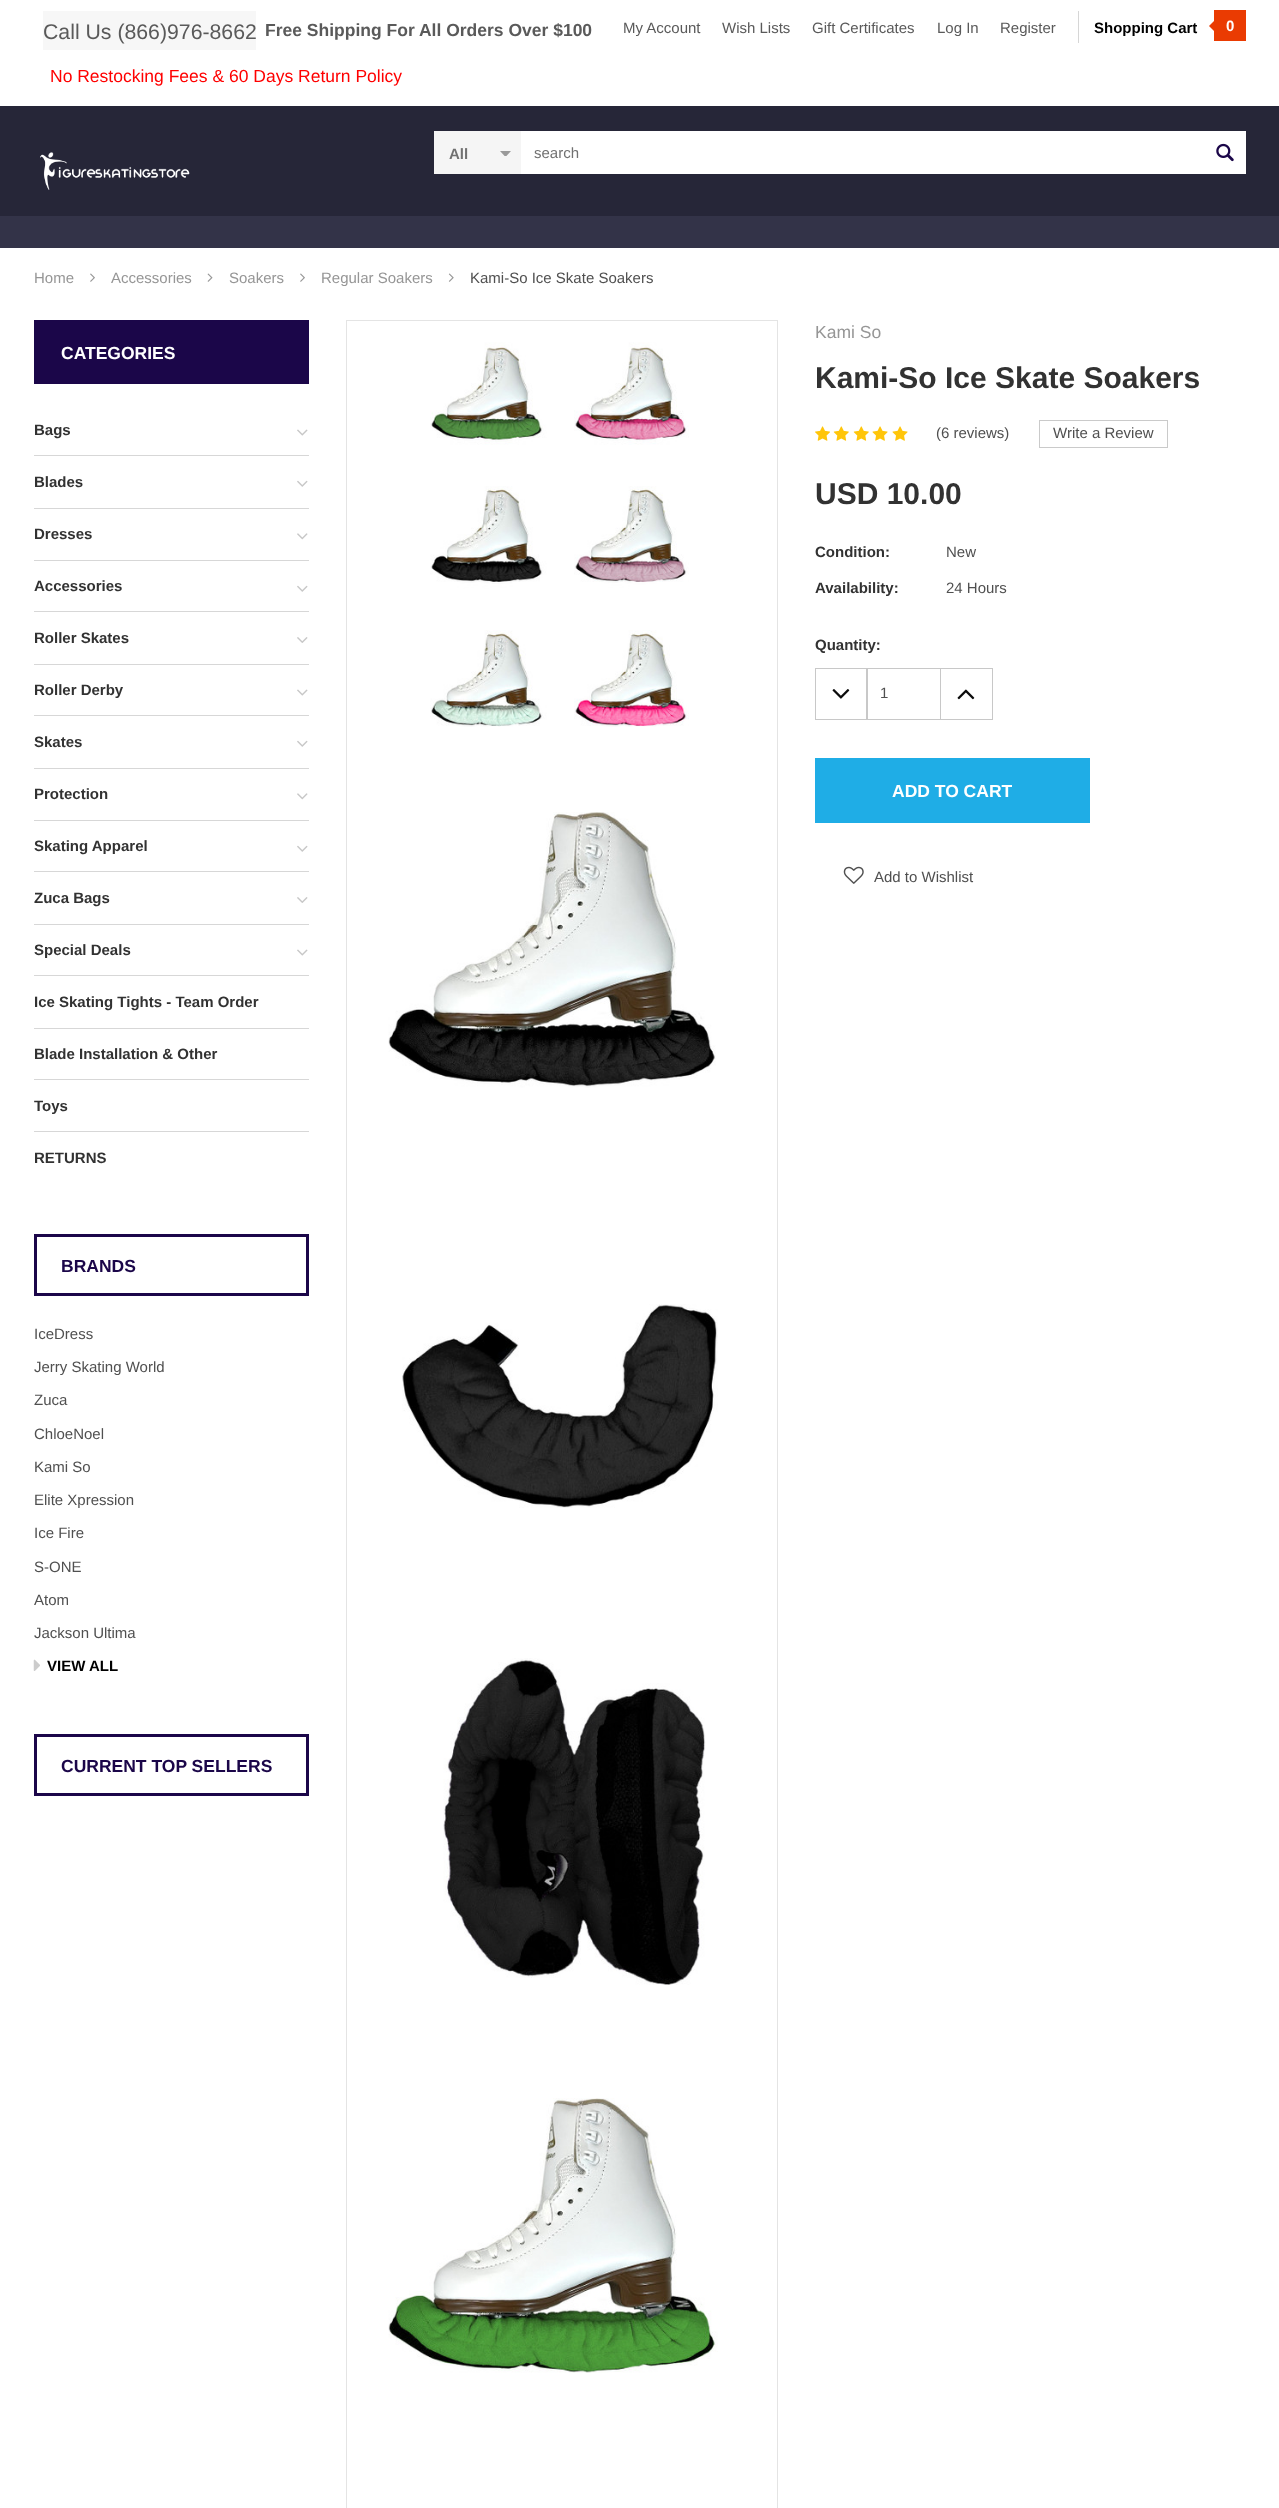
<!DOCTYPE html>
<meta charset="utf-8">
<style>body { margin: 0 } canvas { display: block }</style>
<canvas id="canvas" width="1279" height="2508"></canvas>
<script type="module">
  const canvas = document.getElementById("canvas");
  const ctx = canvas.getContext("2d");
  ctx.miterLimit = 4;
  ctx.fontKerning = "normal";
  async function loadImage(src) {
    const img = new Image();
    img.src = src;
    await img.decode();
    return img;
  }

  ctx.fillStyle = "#ffffff";
  ctx.fillRect(0, 0, 1279, 2508);
  ctx.fillStyle = "#262638";
  ctx.fillRect(0, 106, 1279, 110);
  ctx.fillStyle = "#f7f7f7";
  ctx.fillRect(43, 11, 213, 39);
  ctx.font = "21.25px Arimo";
  ctx.fillStyle = "#5a5a5a";
  ctx.fillText("Call Us (866)976-8662", 43, 39);
  ctx.font = "bold 17.5px Arimo";
  ctx.fillText("Free Shipping For All Orders Over $100", 265, 36);
  ctx.font = "15px Arimo";
  ctx.fillText("My Account", 623, 33);
  ctx.fillText("Wish Lists", 722, 33);
  ctx.fillText("Gift Certificates", 812, 33);
  ctx.fillText("Log In", 937, 33);
  ctx.fillText("Register", 1000, 33);
  ctx.fillStyle = "#d6d6d6";
  ctx.fillRect(1078, 11, 1, 32);
  ctx.font = "bold 15px Arimo";
  ctx.fillStyle = "#000000";
  ctx.fillText("Shopping Cart", 1094, 33);
  ctx.fillStyle = "#ea3b02";
  ctx.fillRect(1214, 10, 32, 31);
  ctx.beginPath();
  ctx.moveTo(1214, 21);
  ctx.lineTo(1214, 31);
  ctx.lineTo(1209, 26);
  ctx.closePath();
  ctx.fill();
  ctx.fillStyle = "#ffffff";
  ctx.fillText("0", 1226, 31);
  ctx.font = "17.5px Arimo";
  ctx.fillStyle = "#ff0000";
  ctx.fillText("No Restocking Fees & 60 Days Return Policy", 50, 82);
  ctx.drawImage(await loadImage("img1.png"), 40, 152, 150, 38);
  ctx.fillStyle = "#ffffff";
  ctx.fillRect(521, 131, 725, 43);
  ctx.fillStyle = "#f5f5f5";
  ctx.fillRect(434, 131, 87, 43);
  ctx.save();
  ctx.beginPath();
  ctx.rect(500, 151, 11, 5);
  ctx.clip();
  ctx.fillStyle = "#9a9a9a";
  ctx.beginPath();
  ctx.moveTo(500, 151);
  ctx.lineTo(505.5, 157);
  ctx.lineTo(511, 151);
  ctx.closePath();
  ctx.fill();
  ctx.restore();
  ctx.font = "bold 15px Arimo";
  ctx.fillStyle = "#717171";
  ctx.fillText("All", 449, 159);
  ctx.font = "15px Arimo";
  ctx.fillText("search", 534, 158);
  ctx.drawImage(await loadImage("img2.png"), 1216, 143, 18, 19);
  ctx.fillStyle = "#333348";
  ctx.fillRect(0, 216, 1279, 32);
  ctx.fillStyle = "#969696";
  ctx.fillText("Home", 34, 283);
  ctx.drawImage(await loadImage("img3.png"), 90, 273, 5, 9);
  ctx.fillText("Accessories", 111, 283);
  ctx.drawImage(await loadImage("img4.png"), 207, 273, 6, 9);
  ctx.fillText("Soakers", 229, 283);
  ctx.drawImage(await loadImage("img3.png"), 300, 273, 5, 9);
  ctx.fillText("Regular Soakers", 321, 283);
  ctx.drawImage(await loadImage("img5.png"), 448, 273, 6, 9);
  ctx.fillStyle = "#505050";
  ctx.fillText("Kami-So Ice Skate Soakers", 470, 283);
  ctx.fillStyle = "#1b0649";
  ctx.fillRect(34, 320, 275, 64);
  ctx.font = "bold 17.5px Arimo";
  ctx.fillStyle = "#ffffff";
  ctx.fillText("CATEGORIES", 61, 359);
  ctx.font = "bold 15px Arimo";
  ctx.fillStyle = "#323232";
  ctx.fillText("Bags", 34, 435);
  ctx.drawImage(await loadImage("img6.png"), 297, 429, 11, 7);
  ctx.fillStyle = "#d7d7d7";
  ctx.fillRect(34, 455, 275, 1);
  ctx.fillStyle = "#323232";
  ctx.fillText("Blades", 34, 487);
  ctx.drawImage(await loadImage("img7.png"), 297, 480, 11, 7);
  ctx.fillStyle = "#d7d7d7";
  ctx.fillRect(34, 508, 275, 1);
  ctx.fillStyle = "#323232";
  ctx.fillText("Dresses", 34, 539);
  ctx.drawImage(await loadImage("img8.png"), 297, 533, 11, 7);
  ctx.fillStyle = "#d7d7d7";
  ctx.fillRect(34, 560, 275, 1);
  ctx.fillStyle = "#323232";
  ctx.fillText("Accessories", 34, 591);
  ctx.drawImage(await loadImage("img7.png"), 297, 585, 11, 7);
  ctx.fillStyle = "#d7d7d7";
  ctx.fillRect(34, 611, 275, 1);
  ctx.fillStyle = "#323232";
  ctx.fillText("Roller Skates", 34, 643);
  ctx.drawImage(await loadImage("img9.png"), 297, 637, 11, 6);
  ctx.fillStyle = "#d7d7d7";
  ctx.fillRect(34, 664, 275, 1);
  ctx.fillStyle = "#323232";
  ctx.fillText("Roller Derby", 34, 695);
  ctx.drawImage(await loadImage("img6.png"), 297, 689, 11, 7);
  ctx.fillStyle = "#d7d7d7";
  ctx.fillRect(34, 715, 275, 1);
  ctx.fillStyle = "#323232";
  ctx.fillText("Skates", 34, 747);
  ctx.drawImage(await loadImage("img7.png"), 297, 740, 11, 7);
  ctx.fillStyle = "#d7d7d7";
  ctx.fillRect(34, 768, 275, 1);
  ctx.fillStyle = "#323232";
  ctx.fillText("Protection", 34, 799);
  ctx.drawImage(await loadImage("img8.png"), 297, 793, 11, 7);
  ctx.fillStyle = "#d7d7d7";
  ctx.fillRect(34, 820, 275, 1);
  ctx.fillStyle = "#323232";
  ctx.fillText("Skating Apparel", 34, 851);
  ctx.drawImage(await loadImage("img7.png"), 297, 845, 11, 7);
  ctx.fillStyle = "#d7d7d7";
  ctx.fillRect(34, 871, 275, 1);
  ctx.fillStyle = "#323232";
  ctx.fillText("Zuca Bags", 34, 903);
  ctx.drawImage(await loadImage("img9.png"), 297, 897, 11, 6);
  ctx.fillStyle = "#d7d7d7";
  ctx.fillRect(34, 924, 275, 1);
  ctx.fillStyle = "#323232";
  ctx.fillText("Special Deals", 34, 955);
  ctx.drawImage(await loadImage("img6.png"), 297, 949, 11, 7);
  ctx.fillStyle = "#d7d7d7";
  ctx.fillRect(34, 975, 275, 1);
  ctx.fillStyle = "#323232";
  ctx.fillText("Ice Skating Tights - Team Order", 34, 1007);
  ctx.fillStyle = "#d7d7d7";
  ctx.fillRect(34, 1028, 275, 1);
  ctx.fillStyle = "#323232";
  ctx.fillText("Blade Installation & Other", 34, 1059);
  ctx.fillStyle = "#d7d7d7";
  ctx.fillRect(34, 1079, 275, 1);
  ctx.fillStyle = "#323232";
  ctx.fillText("Toys", 34, 1111);
  ctx.fillStyle = "#d7d7d7";
  ctx.fillRect(34, 1131, 275, 1);
  ctx.fillStyle = "#323232";
  ctx.fillText("RETURNS", 34, 1163);
  ctx.strokeStyle = "#1b0649";
  ctx.lineWidth = 3;
  ctx.strokeRect(35.5, 1235.5, 272, 59);
  ctx.font = "bold 17.5px Arimo";
  ctx.fillStyle = "#1b0649";
  ctx.fillText("BRANDS", 61, 1272);
  ctx.font = "15px Arimo";
  ctx.fillStyle = "#505050";
  ctx.fillText("IceDress", 34, 1339);
  ctx.fillText("Jerry Skating World", 34, 1372);
  ctx.fillText("Zuca", 34, 1405);
  ctx.fillText("ChloeNoel", 34, 1439);
  ctx.fillText("Kami So", 34, 1472);
  ctx.fillText("Elite Xpression", 34, 1505);
  ctx.fillText("Ice Fire", 34, 1538);
  ctx.fillText("S-ONE", 34, 1572);
  ctx.fillText("Atom", 34, 1605);
  ctx.fillText("Jackson Ultima", 34, 1638);
  ctx.drawImage(await loadImage("img10.png"), 33, 1659, 7, 12);
  ctx.font = "bold 15px Arimo";
  ctx.fillStyle = "#000000";
  ctx.fillText("VIEW ALL", 47, 1671);
  ctx.strokeRect(35.5, 1735.5, 272, 59);
  ctx.font = "bold 17.5px Arimo";
  ctx.fillStyle = "#1b0649";
  ctx.fillText("CURRENT TOP SELLERS", 61, 1772);
  ctx.strokeStyle = "#e4e4e4";
  ctx.lineWidth = 1;
  ctx.strokeRect(346.5, 320.5, 431, 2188);
  ctx.drawImage(await loadImage("img11.png"), 430, 342, 259, 385);
  ctx.drawImage(await loadImage("img12.png"), 388, 812, 328, 276);
  ctx.drawImage(await loadImage("img13.png"), 402, 1304, 316, 204);
  ctx.drawImage(await loadImage("img14.png"), 443, 1658, 263, 327);
  ctx.drawImage(await loadImage("img15.png"), 388, 2098, 330, 275);
  ctx.font = "17.5px Arimo";
  ctx.fillStyle = "#969696";
  ctx.fillText("Kami So", 815, 338);
  ctx.font = "bold 30px Arimo";
  ctx.fillStyle = "#323232";
  ctx.fillText("Kami-So Ice Skate Soakers", 815, 388);
  ctx.drawImage(await loadImage("img16.png"), 815, 426, 15, 15);
  ctx.drawImage(await loadImage("img17.png"), 833, 426, 16, 15);
  ctx.drawImage(await loadImage("img17.png"), 853, 426, 16, 15);
  ctx.drawImage(await loadImage("img18.png"), 872, 426, 16, 15);
  ctx.drawImage(await loadImage("img18.png"), 892, 426, 16, 15);
  ctx.font = "15px Arimo";
  ctx.fillStyle = "#505050";
  ctx.fillText("(6 reviews)", 936, 438);
  ctx.strokeStyle = "#cacaca";
  ctx.strokeRect(1039.5, 420.5, 128, 27);
  ctx.fillText("Write a Review", 1053, 438);
  ctx.font = "bold 30px Arimo";
  ctx.fillStyle = "#323232";
  ctx.fillText("USD 10.00", 815, 504);
  ctx.font = "bold 15px Arimo";
  ctx.fillText("Condition:", 815, 557);
  ctx.font = "15px Arimo";
  ctx.fillStyle = "#505050";
  ctx.fillText("New", 946, 557);
  ctx.font = "bold 15px Arimo";
  ctx.fillStyle = "#323232";
  ctx.fillText("Availability:", 815, 593);
  ctx.font = "15px Arimo";
  ctx.fillStyle = "#505050";
  ctx.fillText("24 Hours", 946, 593);
  ctx.font = "bold 15px Arimo";
  ctx.fillStyle = "#323232";
  ctx.fillText("Quantity:", 815, 650);
  ctx.strokeStyle = "#c8c8c8";
  ctx.strokeRect(866.5, 668.5, 74, 51);
  ctx.strokeRect(815.5, 668.5, 52, 51);
  ctx.drawImage(await loadImage("img19.png"), 832, 689, 18, 10);
  ctx.font = "15px Arimo";
  ctx.fillStyle = "#505050";
  ctx.fillText("1", 880, 698);
  ctx.strokeRect(940.5, 668.5, 52, 51);
  ctx.drawImage(await loadImage("img20.png"), 957, 689, 18, 11);
  ctx.fillStyle = "#1fade6";
  ctx.fillRect(815, 758, 275, 65);
  ctx.font = "bold 17.5px Arimo";
  ctx.fillStyle = "#ffffff";
  ctx.fillText("ADD TO CART", 892, 797);
  ctx.drawImage(await loadImage("img21.png"), 843, 866, 21, 18);
  ctx.font = "15px Arimo";
  ctx.fillStyle = "#505050";
  ctx.fillText("Add to Wishlist", 874, 882);
</script>
